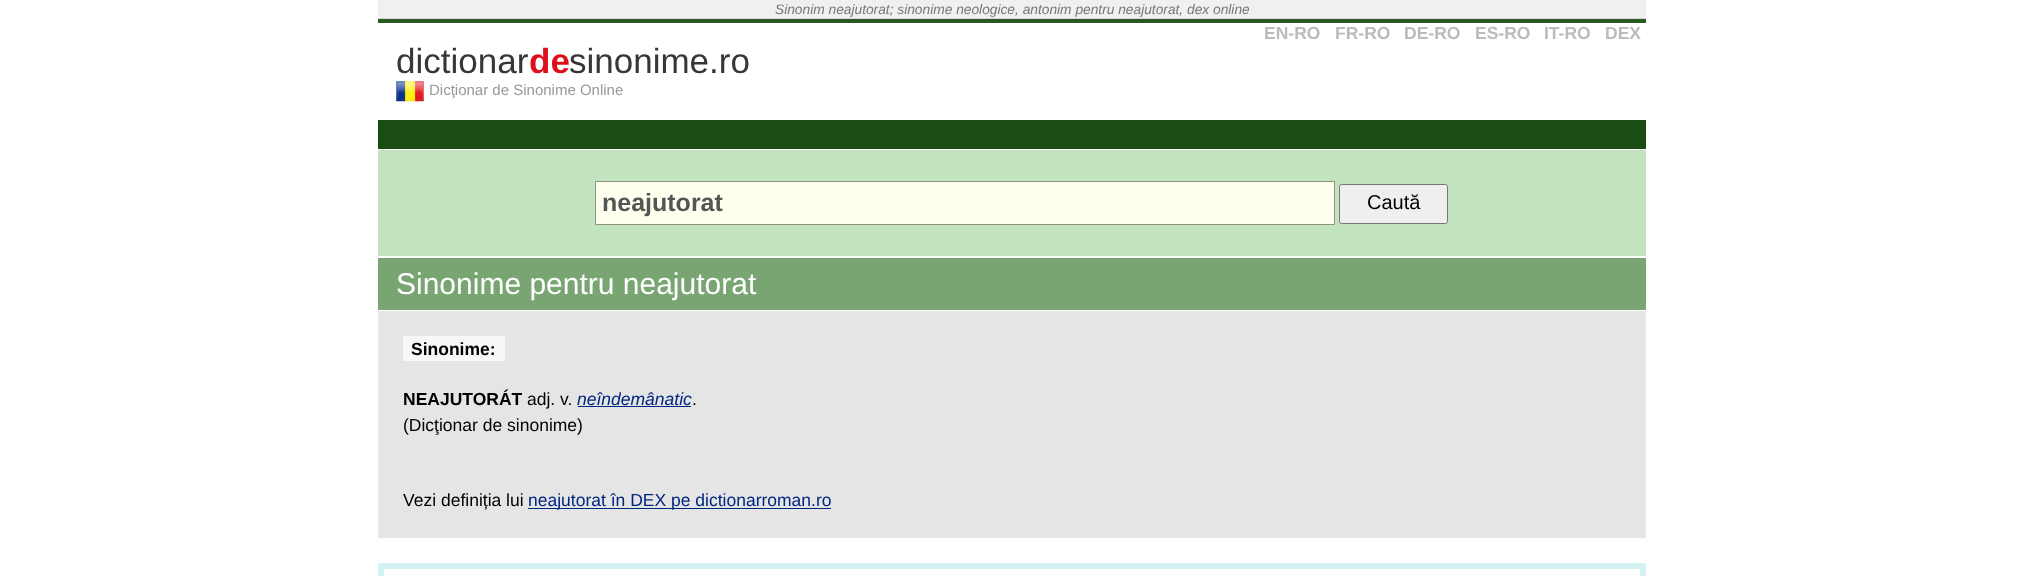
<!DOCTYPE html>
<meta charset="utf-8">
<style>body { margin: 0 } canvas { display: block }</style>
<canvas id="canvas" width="2023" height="576"></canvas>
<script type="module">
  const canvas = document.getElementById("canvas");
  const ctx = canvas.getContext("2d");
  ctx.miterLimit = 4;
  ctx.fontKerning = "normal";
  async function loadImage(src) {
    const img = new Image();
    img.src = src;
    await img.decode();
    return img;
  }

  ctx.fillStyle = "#ffffff";
  ctx.fillRect(0, 0, 2023, 576);
  ctx.fillStyle = "#f0f0f0";
  ctx.fillRect(378, 0, 1268, 18);
  ctx.fillStyle = "#d6d6d6";
  ctx.fillRect(378, 18, 1268, 1);
  ctx.font = "italic 13.75px Liberation Sans";
  ctx.fillStyle = "#777777";
  ctx.fillText("Sinonim neajutorat; sinonime neologice, antonim pentru neajutorat, dex online", 775, 14);
  ctx.fillStyle = "#285a21";
  ctx.fillRect(378, 19, 1268, 4);
  ctx.font = "bold 17.5px Liberation Sans";
  ctx.fillStyle = "#bbbbbb";
  ctx.fillText("EN-RO", 1264, 39);
  ctx.fillText("FR-RO", 1335, 39);
  ctx.fillText("DE-RO", 1404, 39);
  ctx.fillText("ES-RO", 1475, 39);
  ctx.fillText("IT-RO", 1544, 39);
  ctx.fillText("DEX", 1605, 39);
  ctx.font = "35px Liberation Sans";
  ctx.fillStyle = "#373737";
  ctx.fillText("dictionar", 396, 73);
  ctx.font = "bold 35px Liberation Sans";
  ctx.fillStyle = "#dd0f1b";
  ctx.fillText("de", 529, 73);
  ctx.font = "35px Liberation Sans";
  ctx.fillStyle = "#373737";
  ctx.fillText("sinonime.ro", 569, 73);
  ctx.drawImage(await loadImage("img1.png"), 396, 81, 28, 21);
  ctx.font = "15px Liberation Sans";
  ctx.fillStyle = "#999999";
  ctx.fillText("Dicţionar de Sinonime Online", 429, 95);
  ctx.fillStyle = "#1a4d13";
  ctx.fillRect(378, 120, 1268, 29);
  ctx.fillStyle = "#c2e4be";
  ctx.fillRect(378, 150, 1268, 106);
  ctx.fillStyle = "#ffffee";
  ctx.beginPath();
  ctx.rect(595.5, 181.5, 739, 43);
  ctx.fill();
  ctx.strokeStyle = "#92917c";
  ctx.stroke();
  ctx.font = "bold 25px Liberation Sans";
  ctx.fillStyle = "#555555";
  ctx.fillText("neajutorat", 602, 211);
  ctx.fillStyle = "#efefef";
  ctx.beginPath();
  ctx.roundRect(1339.5, 184.5, 108, 39, 2);
  ctx.fill();
  ctx.strokeStyle = "#767676";
  ctx.stroke();
  ctx.font = "20px Liberation Sans";
  ctx.fillStyle = "#000000";
  ctx.fillText("Caută", 1367, 209);
  ctx.fillStyle = "#79a573";
  ctx.fillRect(378, 258, 1268, 52);
  ctx.font = "30px Liberation Sans";
  ctx.fillStyle = "#ffffff";
  ctx.fillText("Sinonime pentru neajutorat", 396, 294);
  ctx.fillStyle = "#e5e5e5";
  ctx.fillRect(378, 311, 1268, 227);
  ctx.fillStyle = "#f7f7f7";
  ctx.fillRect(403, 336, 102, 25);
  ctx.font = "bold 17.5px Liberation Sans";
  ctx.fillStyle = "#000000";
  ctx.fillText("Sinonime:", 411, 355);
  ctx.fillText("NEAJUTORÁT", 403, 405);
  ctx.font = "17.5px Liberation Sans";
  ctx.fillText("adj. v.", 527, 405);
  ctx.font = "italic 17.5px Liberation Sans";
  ctx.fillStyle = "#01267f";
  ctx.fillText("neîndemânatic", 577, 405);
  ctx.font = "17.5px Liberation Sans";
  ctx.fillStyle = "#000000";
  ctx.fillText(".", 692, 405);
  ctx.fillStyle = "#01267f";
  ctx.fillRect(578, 406, 113, 1);
  ctx.fillStyle = "#000000";
  ctx.fillText("(Dicţionar de sinonime)", 403, 431);
  ctx.fillText("Vezi definiția lui", 403, 506);
  ctx.fillStyle = "#01267f";
  ctx.fillRect(528, 508, 303, 1);
  ctx.fillText("neajutorat în DEX pe dictionarroman.ro", 528, 506);
  ctx.strokeStyle = "#d4f1f4";
  ctx.lineWidth = 6;
  ctx.strokeRect(381, 566, 1262, 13);
</script>
